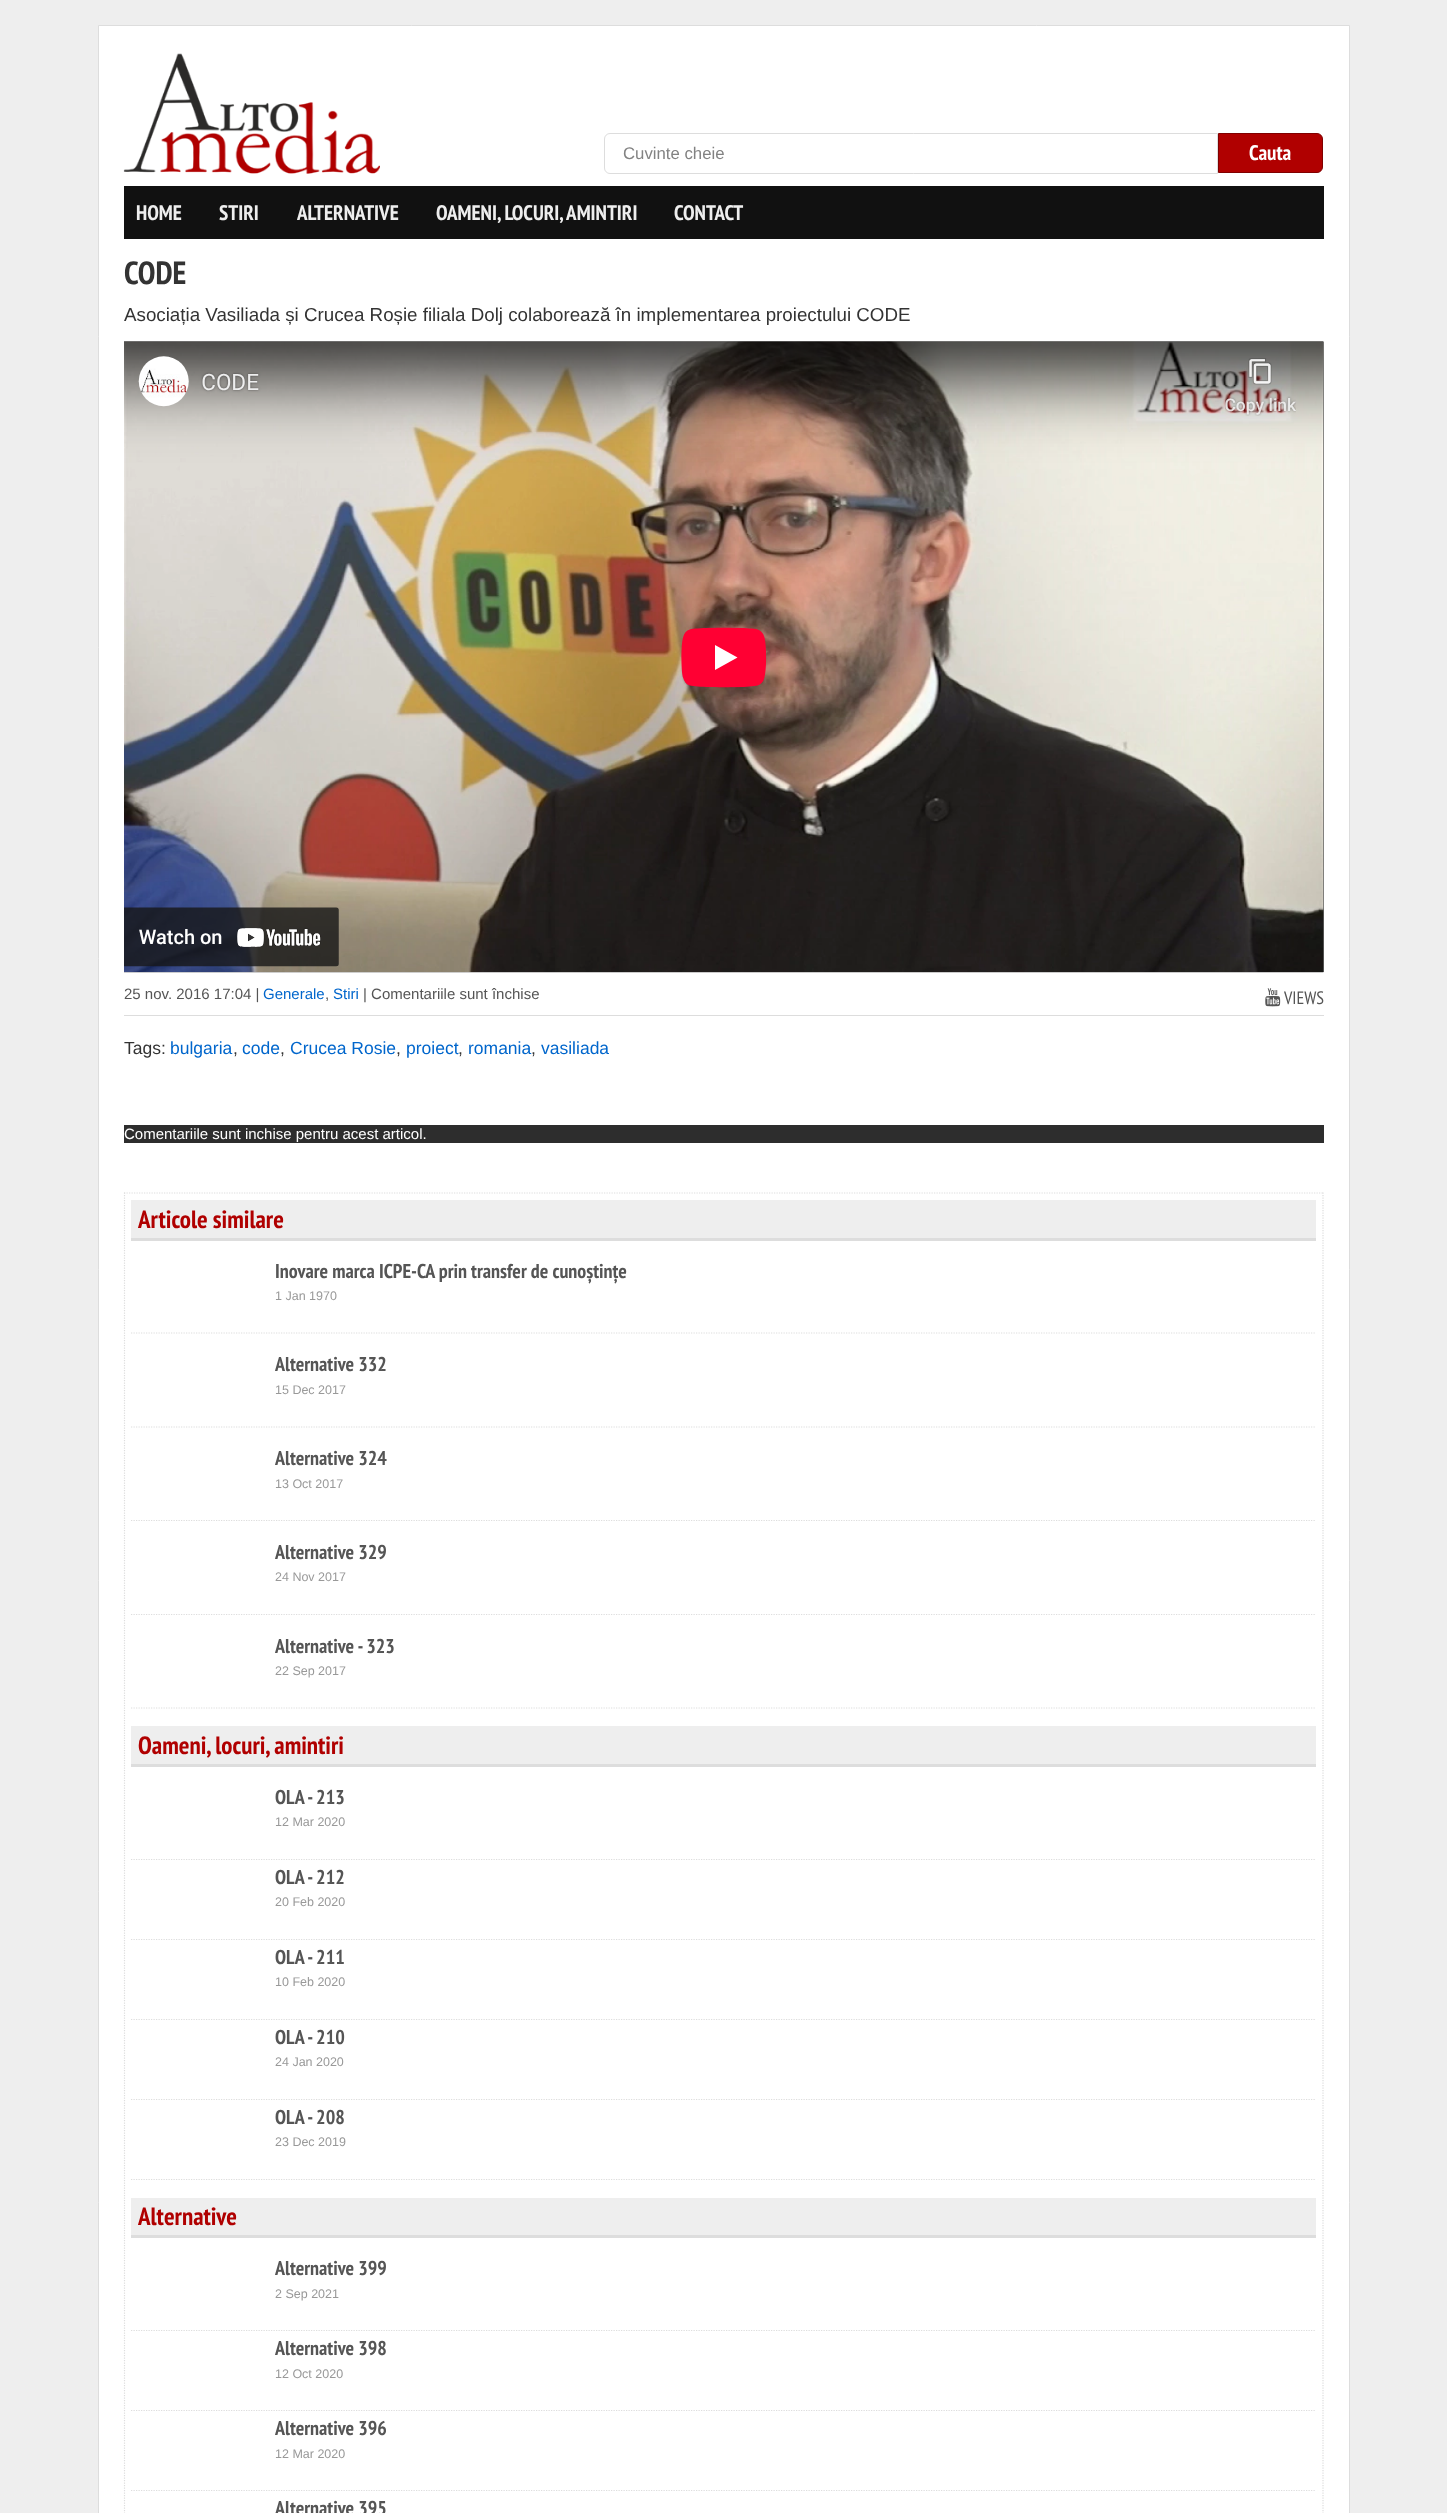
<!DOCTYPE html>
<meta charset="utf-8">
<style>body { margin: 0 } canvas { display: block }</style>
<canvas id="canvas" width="1447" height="2513"></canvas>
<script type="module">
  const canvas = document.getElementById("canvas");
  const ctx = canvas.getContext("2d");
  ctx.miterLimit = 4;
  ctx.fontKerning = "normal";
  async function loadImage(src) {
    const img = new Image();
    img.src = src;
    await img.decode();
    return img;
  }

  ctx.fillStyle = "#eeeeee";
  ctx.fillRect(0, 0, 1447, 2513);
  ctx.fillStyle = "#ffffff";
  ctx.beginPath();
  ctx.rect(98.5, 25.5, 1251, 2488);
  ctx.fill();
  ctx.strokeStyle = "#dddddd";
  ctx.stroke();
  ctx.drawImage(await loadImage("img1.png"), 123, 53, 257, 121);
  ctx.beginPath();
  ctx.roundRect(604.5, 133.5, 613, 40, [5.5, 0, 0, 5.5]);
  ctx.stroke();
  ctx.font = "16.75px Liberation Sans";
  ctx.fillStyle = "#828282";
  ctx.fillText("Cuvinte cheie", 623, 159);
  ctx.fillStyle = "#b00000";
  ctx.beginPath();
  ctx.roundRect(1218.5, 133.5, 104, 39, [0, 5.5, 5.5, 0]);
  ctx.fill();
  ctx.strokeStyle = "#800000";
  ctx.stroke();
  ctx.font = "bold 21px PT Sans Narrow";
  ctx.fillStyle = "#ffffff";
  ctx.fillText("Cauta", 1249, 160);
  ctx.fillStyle = "#111111";
  ctx.fillRect(124, 186, 1200, 53);
  ctx.fillStyle = "#eeeeee";
  ctx.fillText("HOME", 136, 220);
  ctx.fillText("STIRI", 219, 220);
  ctx.fillText("ALTERNATIVE", 297, 220);
  ctx.fillText("OAMENI, LOCURI, AMINTIRI", 436, 220);
  ctx.fillText("CONTACT", 674, 220);
  ctx.font = "bold 32px PT Sans Narrow";
  ctx.fillStyle = "#333333";
  ctx.fillText("CODE", 124, 284);
  ctx.font = "18.75px Liberation Sans";
  ctx.fillText("Asociația Vasiliada și Crucea Roșie filiala Dolj colaborează în implementarea proiectului CODE", 124, 321);
  ctx.drawImage(await loadImage("img2.png"), 124, 341, 1200, 632);
  ctx.fillStyle = "#dddddd";
  ctx.fillRect(124, 1015, 1200, 1);
  ctx.font = "15px Liberation Sans";
  ctx.fillStyle = "#555555";
  ctx.fillText("25 nov. 2016 17:04 |", 124, 999);
  ctx.fillStyle = "#0066cc";
  ctx.fillText("Generale", 263, 999);
  ctx.fillStyle = "#555555";
  ctx.fillText(",", 325, 999);
  ctx.fillStyle = "#0066cc";
  ctx.fillText("Stiri", 333, 999);
  ctx.fillStyle = "#555555";
  ctx.fillText("| Comentariile sunt închise", 363, 999);
  ctx.drawImage(await loadImage("img3.png"), 1265, 988, 16, 19);
  ctx.font = "18px PT Sans Narrow";
  ctx.fillText("VIEWS", 1284, 1004);
  ctx.font = "17.5px Liberation Sans";
  ctx.fillStyle = "#333333";
  ctx.fillText("Tags:", 124, 1054);
  ctx.fillStyle = "#0066cc";
  ctx.fillText("bulgaria", 170, 1054);
  ctx.fillStyle = "#333333";
  ctx.fillText(",", 233, 1054);
  ctx.fillStyle = "#0066cc";
  ctx.fillText("code", 242, 1054);
  ctx.fillStyle = "#333333";
  ctx.fillText(",", 280, 1054);
  ctx.fillStyle = "#0066cc";
  ctx.fillText("Crucea Rosie", 290, 1054);
  ctx.fillStyle = "#333333";
  ctx.fillText(",", 396, 1054);
  ctx.fillStyle = "#0066cc";
  ctx.fillText("proiect", 406, 1054);
  ctx.fillStyle = "#333333";
  ctx.fillText(",", 458, 1054);
  ctx.fillStyle = "#0066cc";
  ctx.fillText("romania", 468, 1054);
  ctx.fillStyle = "#333333";
  ctx.fillText(",", 531, 1054);
  ctx.fillStyle = "#0066cc";
  ctx.fillText("vasiliada", 541, 1054);
  ctx.fillStyle = "#2d2d2d";
  ctx.fillRect(124, 1125, 1200, 18);
  ctx.font = "15px Liberation Sans";
  ctx.fillStyle = "#ffffff";
  ctx.fillText("Comentariile sunt inchise pentru acest articol.", 124, 1139);
  ctx.beginPath();
  ctx.moveTo(124, 1193);
  ctx.lineTo(1324, 1193);
  ctx.strokeStyle = "#dddddd";
  ctx.lineWidth = 1.2;
  ctx.setLineDash([1.25, 1.25]);
  ctx.stroke();
  ctx.beginPath();
  ctx.moveTo(1323, 1192.5);
  ctx.lineTo(1323, 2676);
  ctx.stroke();
  ctx.beginPath();
  ctx.moveTo(124.5, 1192.5);
  ctx.lineTo(124.5, 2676);
  ctx.stroke();
  ctx.fillStyle = "#eeeeee";
  ctx.fillRect(131, 1200, 1185, 38);
  ctx.fillStyle = "#dddddd";
  ctx.fillRect(131, 1238, 1185, 3);
  ctx.font = "bold 25px PT Sans Narrow";
  ctx.fillStyle = "#b00000";
  ctx.fillText("Articole similare", 138, 1228);
  ctx.beginPath();
  ctx.moveTo(131, 1333);
  ctx.lineTo(1316, 1333);
  ctx.stroke();
  ctx.font = "bold 20px PT Sans Narrow";
  ctx.fillStyle = "#555555";
  ctx.fillText("Inovare marca ICPE-CA prin transfer de cunoștințe", 275, 1278);
  ctx.font = "12.5px Liberation Sans";
  ctx.fillStyle = "#999999";
  ctx.fillText("1 Jan 1970", 275, 1300);
  ctx.beginPath();
  ctx.moveTo(131, 1427);
  ctx.lineTo(1316, 1427);
  ctx.stroke();
  ctx.font = "bold 20px PT Sans Narrow";
  ctx.fillStyle = "#555555";
  ctx.fillText("Alternative 332", 275, 1371);
  ctx.font = "12.5px Liberation Sans";
  ctx.fillStyle = "#999999";
  ctx.fillText("15 Dec 2017", 275, 1394);
  ctx.beginPath();
  ctx.moveTo(131, 1520.5);
  ctx.lineTo(1316, 1520.5);
  ctx.stroke();
  ctx.font = "bold 20px PT Sans Narrow";
  ctx.fillStyle = "#555555";
  ctx.fillText("Alternative 324", 275, 1465);
  ctx.font = "12.5px Liberation Sans";
  ctx.fillStyle = "#999999";
  ctx.fillText("13 Oct 2017", 275, 1488);
  ctx.beginPath();
  ctx.moveTo(131, 1614.5);
  ctx.lineTo(1316, 1614.5);
  ctx.stroke();
  ctx.font = "bold 20px PT Sans Narrow";
  ctx.fillStyle = "#555555";
  ctx.fillText("Alternative 329", 275, 1559);
  ctx.font = "12.5px Liberation Sans";
  ctx.fillStyle = "#999999";
  ctx.fillText("24 Nov 2017", 275, 1581);
  ctx.beginPath();
  ctx.moveTo(131, 1708);
  ctx.lineTo(1316, 1708);
  ctx.stroke();
  ctx.font = "bold 20px PT Sans Narrow";
  ctx.fillStyle = "#555555";
  ctx.fillText("Alternative - 323", 275, 1653);
  ctx.font = "12.5px Liberation Sans";
  ctx.fillStyle = "#999999";
  ctx.fillText("22 Sep 2017", 275, 1675);
  ctx.fillStyle = "#eeeeee";
  ctx.fillRect(131, 1726, 1185, 38);
  ctx.fillStyle = "#dddddd";
  ctx.fillRect(131, 1764, 1185, 3);
  ctx.font = "bold 25px PT Sans Narrow";
  ctx.fillStyle = "#b00000";
  ctx.fillText("Oameni, locuri, amintiri", 138, 1754);
  ctx.beginPath();
  ctx.moveTo(131, 1859.5);
  ctx.lineTo(1316, 1859.5);
  ctx.stroke();
  ctx.font = "bold 20px PT Sans Narrow";
  ctx.fillStyle = "#555555";
  ctx.fillText("OLA - 213", 275, 1804);
  ctx.font = "12.5px Liberation Sans";
  ctx.fillStyle = "#999999";
  ctx.fillText("12 Mar 2020", 275, 1826);
  ctx.beginPath();
  ctx.moveTo(131, 1939.5);
  ctx.lineTo(1316, 1939.5);
  ctx.stroke();
  ctx.font = "bold 20px PT Sans Narrow";
  ctx.fillStyle = "#555555";
  ctx.fillText("OLA - 212", 275, 1884);
  ctx.font = "12.5px Liberation Sans";
  ctx.fillStyle = "#999999";
  ctx.fillText("20 Feb 2020", 275, 1906);
  ctx.beginPath();
  ctx.moveTo(131, 2019.5);
  ctx.lineTo(1316, 2019.5);
  ctx.stroke();
  ctx.font = "bold 20px PT Sans Narrow";
  ctx.fillStyle = "#555555";
  ctx.fillText("OLA - 211", 275, 1964);
  ctx.font = "12.5px Liberation Sans";
  ctx.fillStyle = "#999999";
  ctx.fillText("10 Feb 2020", 275, 1986);
  ctx.beginPath();
  ctx.moveTo(131, 2099.5);
  ctx.lineTo(1316, 2099.5);
  ctx.stroke();
  ctx.font = "bold 20px PT Sans Narrow";
  ctx.fillStyle = "#555555";
  ctx.fillText("OLA - 210", 275, 2044);
  ctx.font = "12.5px Liberation Sans";
  ctx.fillStyle = "#999999";
  ctx.fillText("24 Jan 2020", 275, 2066);
  ctx.beginPath();
  ctx.moveTo(131, 2179.5);
  ctx.lineTo(1316, 2179.5);
  ctx.stroke();
  ctx.font = "bold 20px PT Sans Narrow";
  ctx.fillStyle = "#555555";
  ctx.fillText("OLA - 208", 275, 2124);
  ctx.font = "12.5px Liberation Sans";
  ctx.fillStyle = "#999999";
  ctx.fillText("23 Dec 2019", 275, 2146);
  ctx.fillStyle = "#eeeeee";
  ctx.fillRect(131, 2198, 1185, 37);
  ctx.fillStyle = "#dddddd";
  ctx.fillRect(131, 2235, 1185, 3);
  ctx.font = "bold 25px PT Sans Narrow";
  ctx.fillStyle = "#b00000";
  ctx.fillText("Alternative", 138, 2225);
  ctx.beginPath();
  ctx.moveTo(131, 2330.5);
  ctx.lineTo(1316, 2330.5);
  ctx.stroke();
  ctx.font = "bold 20px PT Sans Narrow";
  ctx.fillStyle = "#555555";
  ctx.fillText("Alternative 399", 275, 2275);
  ctx.font = "12.5px Liberation Sans";
  ctx.fillStyle = "#999999";
  ctx.fillText("2 Sep 2021", 275, 2298);
  ctx.beginPath();
  ctx.moveTo(131, 2410.5);
  ctx.lineTo(1316, 2410.5);
  ctx.stroke();
  ctx.font = "bold 20px PT Sans Narrow";
  ctx.fillStyle = "#555555";
  ctx.fillText("Alternative 398", 275, 2355);
  ctx.font = "12.5px Liberation Sans";
  ctx.fillStyle = "#999999";
  ctx.fillText("12 Oct 2020", 275, 2378);
  ctx.beginPath();
  ctx.moveTo(131, 2490.5);
  ctx.lineTo(1316, 2490.5);
  ctx.stroke();
  ctx.font = "bold 20px PT Sans Narrow";
  ctx.fillStyle = "#555555";
  ctx.fillText("Alternative 396", 275, 2435);
  ctx.font = "12.5px Liberation Sans";
  ctx.fillStyle = "#999999";
  ctx.fillText("12 Mar 2020", 275, 2458);
  ctx.font = "bold 20px PT Sans Narrow";
  ctx.fillStyle = "#555555";
  ctx.fillText("Alternative 395", 275, 2515);
</script>
